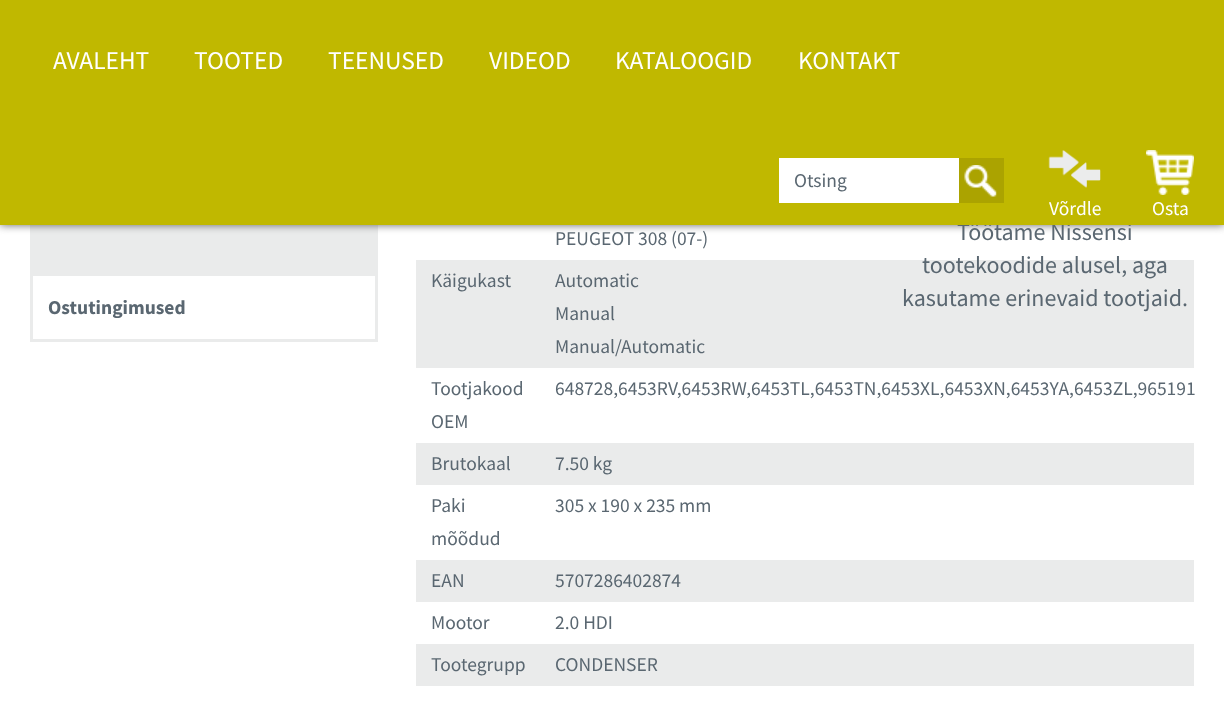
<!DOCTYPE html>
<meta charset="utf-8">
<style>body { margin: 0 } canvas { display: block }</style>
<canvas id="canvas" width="1224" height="716"></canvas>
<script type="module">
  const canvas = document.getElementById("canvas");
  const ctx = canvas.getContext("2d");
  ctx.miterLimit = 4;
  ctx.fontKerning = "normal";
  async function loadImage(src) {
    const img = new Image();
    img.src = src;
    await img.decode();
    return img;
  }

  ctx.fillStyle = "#ffffff";
  ctx.fillRect(0, 0, 1224, 716);
  ctx.fillStyle = "#eaebeb";
  ctx.fillRect(30, 225, 348, 48);
  ctx.fillStyle = "#666666";
  ctx.filter = "blur(4px)";
  ctx.beginPath();
  ctx.rect(0, 0, 1224, 225);
  ctx.fill();
  ctx.filter = "none";
  ctx.font = "24px Source Sans Pro";
  ctx.fillStyle = "#5a6771";
  ctx.fillText("Töötame Nissensi", 957, 240);
  ctx.fillStyle = "#c0b800";
  ctx.fillRect(0, 0, 1224, 225);
  ctx.font = "25.5px Source Sans Pro";
  ctx.fillStyle = "#ffffff";
  ctx.fillText("AVALEHT", 53, 69);
  ctx.fillText("TOOTED", 194, 69);
  ctx.fillText("TEENUSED", 328, 69);
  ctx.fillText("VIDEOD", 489, 69);
  ctx.fillText("KATALOOGID", 615, 69);
  ctx.fillText("KONTAKT", 798, 69);
  ctx.fillRect(779, 158, 180, 45);
  ctx.font = "19.5px Source Sans Pro";
  ctx.fillStyle = "#5a6771";
  ctx.fillText("Otsing", 794, 187);
  ctx.fillStyle = "#aba300";
  ctx.fillRect(959, 158, 45, 45);
  ctx.drawImage(await loadImage("img1.png"), 964, 165, 33, 32);
  ctx.drawImage(await loadImage("img2.png"), 1048, 150, 53, 38);
  ctx.fillStyle = "#ffffff";
  ctx.fillText("Võrdle", 1049, 215);
  ctx.drawImage(await loadImage("img3.png"), 1146, 150, 48, 45);
  ctx.fillText("Osta", 1152, 215);
  ctx.strokeStyle = "#eaebeb";
  ctx.lineWidth = 3;
  ctx.strokeRect(31.5, 274.5, 345, 66);
  ctx.font = "bold 19.5px Source Sans Pro";
  ctx.fillStyle = "#5a6771";
  ctx.fillText("Ostutingimused", 48, 314);
  ctx.fillStyle = "#eaebeb";
  ctx.fillRect(416, 260, 778, 108);
  ctx.font = "24px Source Sans Pro";
  ctx.fillStyle = "#5a6771";
  ctx.fillText("tootekoodide alusel, aga", 922, 273);
  ctx.fillText("kasutame erinevaid tootjaid.", 902, 306);
  ctx.font = "19.5px Source Sans Pro";
  ctx.fillText("PEUGEOT 308 (07-)", 555, 245);
  ctx.fillText("Käigukast", 431, 287);
  ctx.fillText("Automatic", 555, 287);
  ctx.fillText("Manual", 555, 320);
  ctx.fillText("Manual/Automatic", 555, 353);
  ctx.fillText("Tootjakood", 431, 395);
  ctx.fillText("OEM", 431, 428);
  ctx.fillText("648728,6453RV,6453RW,6453TL,6453TN,6453XL,6453XN,6453YA,6453ZL,965191", 555, 395);
  ctx.fillStyle = "#eaebeb";
  ctx.fillRect(416, 443, 778, 42);
  ctx.fillStyle = "#5a6771";
  ctx.fillText("Brutokaal", 431, 470);
  ctx.fillText("7.50 kg", 555, 470);
  ctx.fillText("Paki", 431, 512);
  ctx.fillText("mõõdud", 431, 545);
  ctx.fillText("305 x 190 x 235 mm", 555, 512);
  ctx.fillStyle = "#eaebeb";
  ctx.fillRect(416, 560, 778, 42);
  ctx.fillStyle = "#5a6771";
  ctx.fillText("EAN", 431, 587);
  ctx.fillText("5707286402874", 555, 587);
  ctx.fillText("Mootor", 431, 629);
  ctx.fillText("2.0 HDI", 555, 629);
  ctx.fillStyle = "#eaebeb";
  ctx.fillRect(416, 644, 778, 42);
  ctx.fillStyle = "#5a6771";
  ctx.fillText("Tootegrupp", 431, 671);
  ctx.fillText("CONDENSER", 555, 671);
</script>
